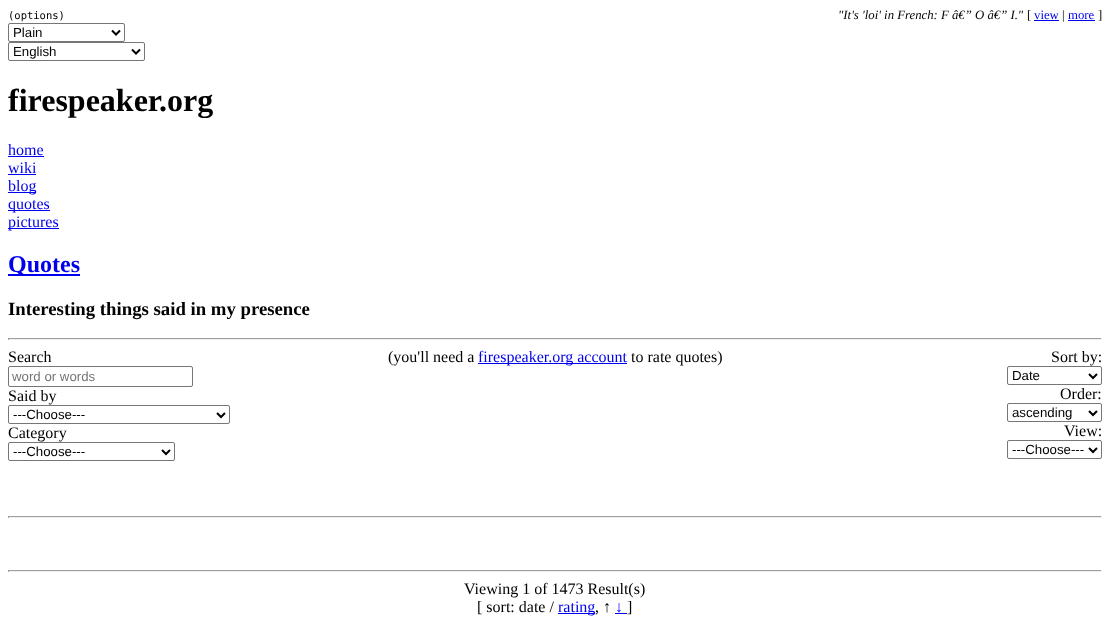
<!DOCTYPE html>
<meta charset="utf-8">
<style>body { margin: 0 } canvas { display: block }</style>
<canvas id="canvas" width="1110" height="641"></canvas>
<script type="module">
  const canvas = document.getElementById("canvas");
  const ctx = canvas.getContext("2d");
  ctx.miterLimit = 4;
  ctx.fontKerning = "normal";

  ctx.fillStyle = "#ffffff";
  ctx.fillRect(0, 0, 1110, 641);
  ctx.font = "10.5px DejaVu Sans Mono";
  ctx.fillStyle = "#000000";
  ctx.fillText("(options)", 8, 19);
  ctx.font = "italic 12.75px Liberation Serif";
  ctx.fillText("\"It's 'loi' in French: F â€” O â€” I.\"", 838, 19);
  ctx.font = "12.75px Liberation Serif";
  ctx.fillText("[", 1027, 19);
  ctx.fillStyle = "#0000ee";
  ctx.fillText("view", 1034, 19);
  ctx.fillRect(1034, 20, 25, 1);
  ctx.fillStyle = "#000000";
  ctx.fillText("|", 1062, 19);
  ctx.fillStyle = "#0000ee";
  ctx.fillText("more", 1068, 19);
  ctx.fillRect(1068, 20, 27, 1);
  ctx.fillStyle = "#000000";
  ctx.fillText("]", 1098, 19);
  ctx.beginPath();
  ctx.roundRect(8.5, 23.5, 116, 18, 1.5);
  ctx.strokeStyle = "#767676";
  ctx.stroke();
  ctx.beginPath();
  ctx.moveTo(112, 30.5);
  ctx.lineTo(116, 34.5);
  ctx.lineTo(120, 30.5);
  ctx.strokeStyle = "#000000";
  ctx.lineWidth = 2;
  ctx.stroke();
  ctx.font = "13.25px Liberation Sans";
  ctx.fillText("Plain", 13, 37);
  ctx.beginPath();
  ctx.roundRect(8.5, 42.5, 136, 18, 1.5);
  ctx.strokeStyle = "#767676";
  ctx.lineWidth = 1;
  ctx.stroke();
  ctx.beginPath();
  ctx.moveTo(132, 49.5);
  ctx.lineTo(136, 53.5);
  ctx.lineTo(140, 49.5);
  ctx.strokeStyle = "#000000";
  ctx.lineWidth = 2;
  ctx.stroke();
  ctx.fillText("English", 13, 56);
  ctx.font = "bold 32px Liberation Serif";
  ctx.fillText("firespeaker.org", 8, 111);
  ctx.font = "16px Liberation Serif";
  ctx.fillStyle = "#0000ee";
  ctx.fillText("home", 8, 155);
  ctx.fillRect(8, 156, 36, 1);
  ctx.fillText("wiki", 8, 173);
  ctx.fillRect(8, 174, 28, 1);
  ctx.fillRect(8, 192, 28, 1);
  ctx.fillText("blog", 8, 191);
  ctx.fillRect(8, 210, 42, 1);
  ctx.fillText("quotes", 8, 209);
  ctx.fillRect(8, 228, 51, 1);
  ctx.fillText("pictures", 8, 227);
  ctx.fillRect(8, 274, 72, 2);
  ctx.font = "bold 24px Liberation Serif";
  ctx.fillText("Quotes", 8, 272);
  ctx.font = "bold 18.75px Liberation Serif";
  ctx.fillStyle = "#000000";
  ctx.fillText("Interesting things said in my presence", 8, 315);
  ctx.fillStyle = "#9f9f9f";
  ctx.fillRect(8, 338, 1094, 1);
  ctx.fillStyle = "#eeeeee";
  ctx.fillRect(1101, 338, 1, 2);
  ctx.fillRect(8, 339, 1094, 1);
  ctx.fillStyle = "#9f9f9f";
  ctx.fillRect(8, 338, 1, 2);
  ctx.font = "16px Liberation Serif";
  ctx.fillStyle = "#000000";
  ctx.fillText("Search", 8, 362);
  ctx.beginPath();
  ctx.roundRect(8.5, 366.5, 184, 20, 1.5);
  ctx.strokeStyle = "#767676";
  ctx.lineWidth = 1;
  ctx.stroke();
  ctx.font = "13.25px Liberation Sans";
  ctx.fillStyle = "#757575";
  ctx.fillText("word or words", 12, 381);
  ctx.font = "16px Liberation Serif";
  ctx.fillStyle = "#000000";
  ctx.fillText("Said by", 8, 401);
  ctx.beginPath();
  ctx.roundRect(8.5, 405.5, 221, 18, 1.5);
  ctx.stroke();
  ctx.beginPath();
  ctx.moveTo(217, 413);
  ctx.lineTo(221, 417);
  ctx.lineTo(225, 413);
  ctx.strokeStyle = "#000000";
  ctx.lineWidth = 2;
  ctx.stroke();
  ctx.font = "13.25px Liberation Sans";
  ctx.fillText("---Choose---", 13, 419);
  ctx.font = "16px Liberation Serif";
  ctx.fillText("Category", 8, 438);
  ctx.beginPath();
  ctx.roundRect(8.5, 442.5, 166, 18, 1.5);
  ctx.strokeStyle = "#767676";
  ctx.lineWidth = 1;
  ctx.stroke();
  ctx.beginPath();
  ctx.moveTo(162, 450);
  ctx.lineTo(166, 454);
  ctx.lineTo(170, 450);
  ctx.strokeStyle = "#000000";
  ctx.lineWidth = 2;
  ctx.stroke();
  ctx.font = "13.25px Liberation Sans";
  ctx.fillText("---Choose---", 13, 456);
  ctx.font = "16px Liberation Serif";
  ctx.fillText("(you'll need a", 388, 362);
  ctx.fillStyle = "#0000ee";
  ctx.fillRect(478, 363, 149, 1);
  ctx.fillText("firespeaker.org account", 478, 362);
  ctx.fillStyle = "#000000";
  ctx.fillText("to rate quotes)", 631, 362);
  ctx.fillText("Sort by:", 1051, 362);
  ctx.beginPath();
  ctx.roundRect(1007.5, 366.5, 94, 18, 1.5);
  ctx.strokeStyle = "#767676";
  ctx.lineWidth = 1;
  ctx.stroke();
  ctx.beginPath();
  ctx.moveTo(1089, 374);
  ctx.lineTo(1093, 378);
  ctx.lineTo(1097, 374);
  ctx.strokeStyle = "#000000";
  ctx.lineWidth = 2;
  ctx.stroke();
  ctx.font = "13.25px Liberation Sans";
  ctx.fillText("Date", 1012, 380);
  ctx.font = "16px Liberation Serif";
  ctx.fillText("Order:", 1060, 399);
  ctx.beginPath();
  ctx.roundRect(1007.5, 403.5, 94, 18, 1.5);
  ctx.strokeStyle = "#767676";
  ctx.lineWidth = 1;
  ctx.stroke();
  ctx.beginPath();
  ctx.moveTo(1089, 411);
  ctx.lineTo(1093, 415);
  ctx.lineTo(1097, 411);
  ctx.strokeStyle = "#000000";
  ctx.lineWidth = 2;
  ctx.stroke();
  ctx.font = "13.25px Liberation Sans";
  ctx.fillText("ascending", 1012, 417);
  ctx.font = "16px Liberation Serif";
  ctx.fillText("View:", 1064, 436);
  ctx.beginPath();
  ctx.roundRect(1007.5, 440.5, 94, 18, 1.5);
  ctx.strokeStyle = "#767676";
  ctx.lineWidth = 1;
  ctx.stroke();
  ctx.beginPath();
  ctx.moveTo(1089, 448);
  ctx.lineTo(1093, 452);
  ctx.lineTo(1097, 448);
  ctx.strokeStyle = "#000000";
  ctx.lineWidth = 2;
  ctx.stroke();
  ctx.font = "13.25px Liberation Sans";
  ctx.fillText("---Choose---", 1012, 454);
  ctx.fillStyle = "#9f9f9f";
  ctx.fillRect(8, 516, 1094, 1);
  ctx.fillStyle = "#eeeeee";
  ctx.fillRect(1101, 516, 1, 2);
  ctx.fillRect(8, 517, 1094, 1);
  ctx.fillStyle = "#9f9f9f";
  ctx.fillRect(8, 516, 1, 2);
  ctx.fillRect(8, 570, 1094, 1);
  ctx.fillStyle = "#eeeeee";
  ctx.fillRect(1101, 570, 1, 2);
  ctx.fillRect(8, 571, 1094, 1);
  ctx.fillStyle = "#9f9f9f";
  ctx.fillRect(8, 570, 1, 2);
  ctx.font = "16px Liberation Serif";
  ctx.fillStyle = "#000000";
  ctx.fillText("Viewing 1 of 1473 Result(s)", 464, 594);
  ctx.fillText("[ sort: date /", 477, 612);
  ctx.fillStyle = "#0000ee";
  ctx.fillRect(558, 613, 37, 1);
  ctx.fillText("rating", 558, 612);
  ctx.fillStyle = "#000000";
  ctx.fillText(", ↑", 595, 612);
  ctx.fillStyle = "#0000ee";
  ctx.fillText("↓", 615, 612);
  ctx.fillRect(615, 613, 12, 1);
  ctx.fillStyle = "#000000";
  ctx.fillText("]", 627, 612);
</script>
